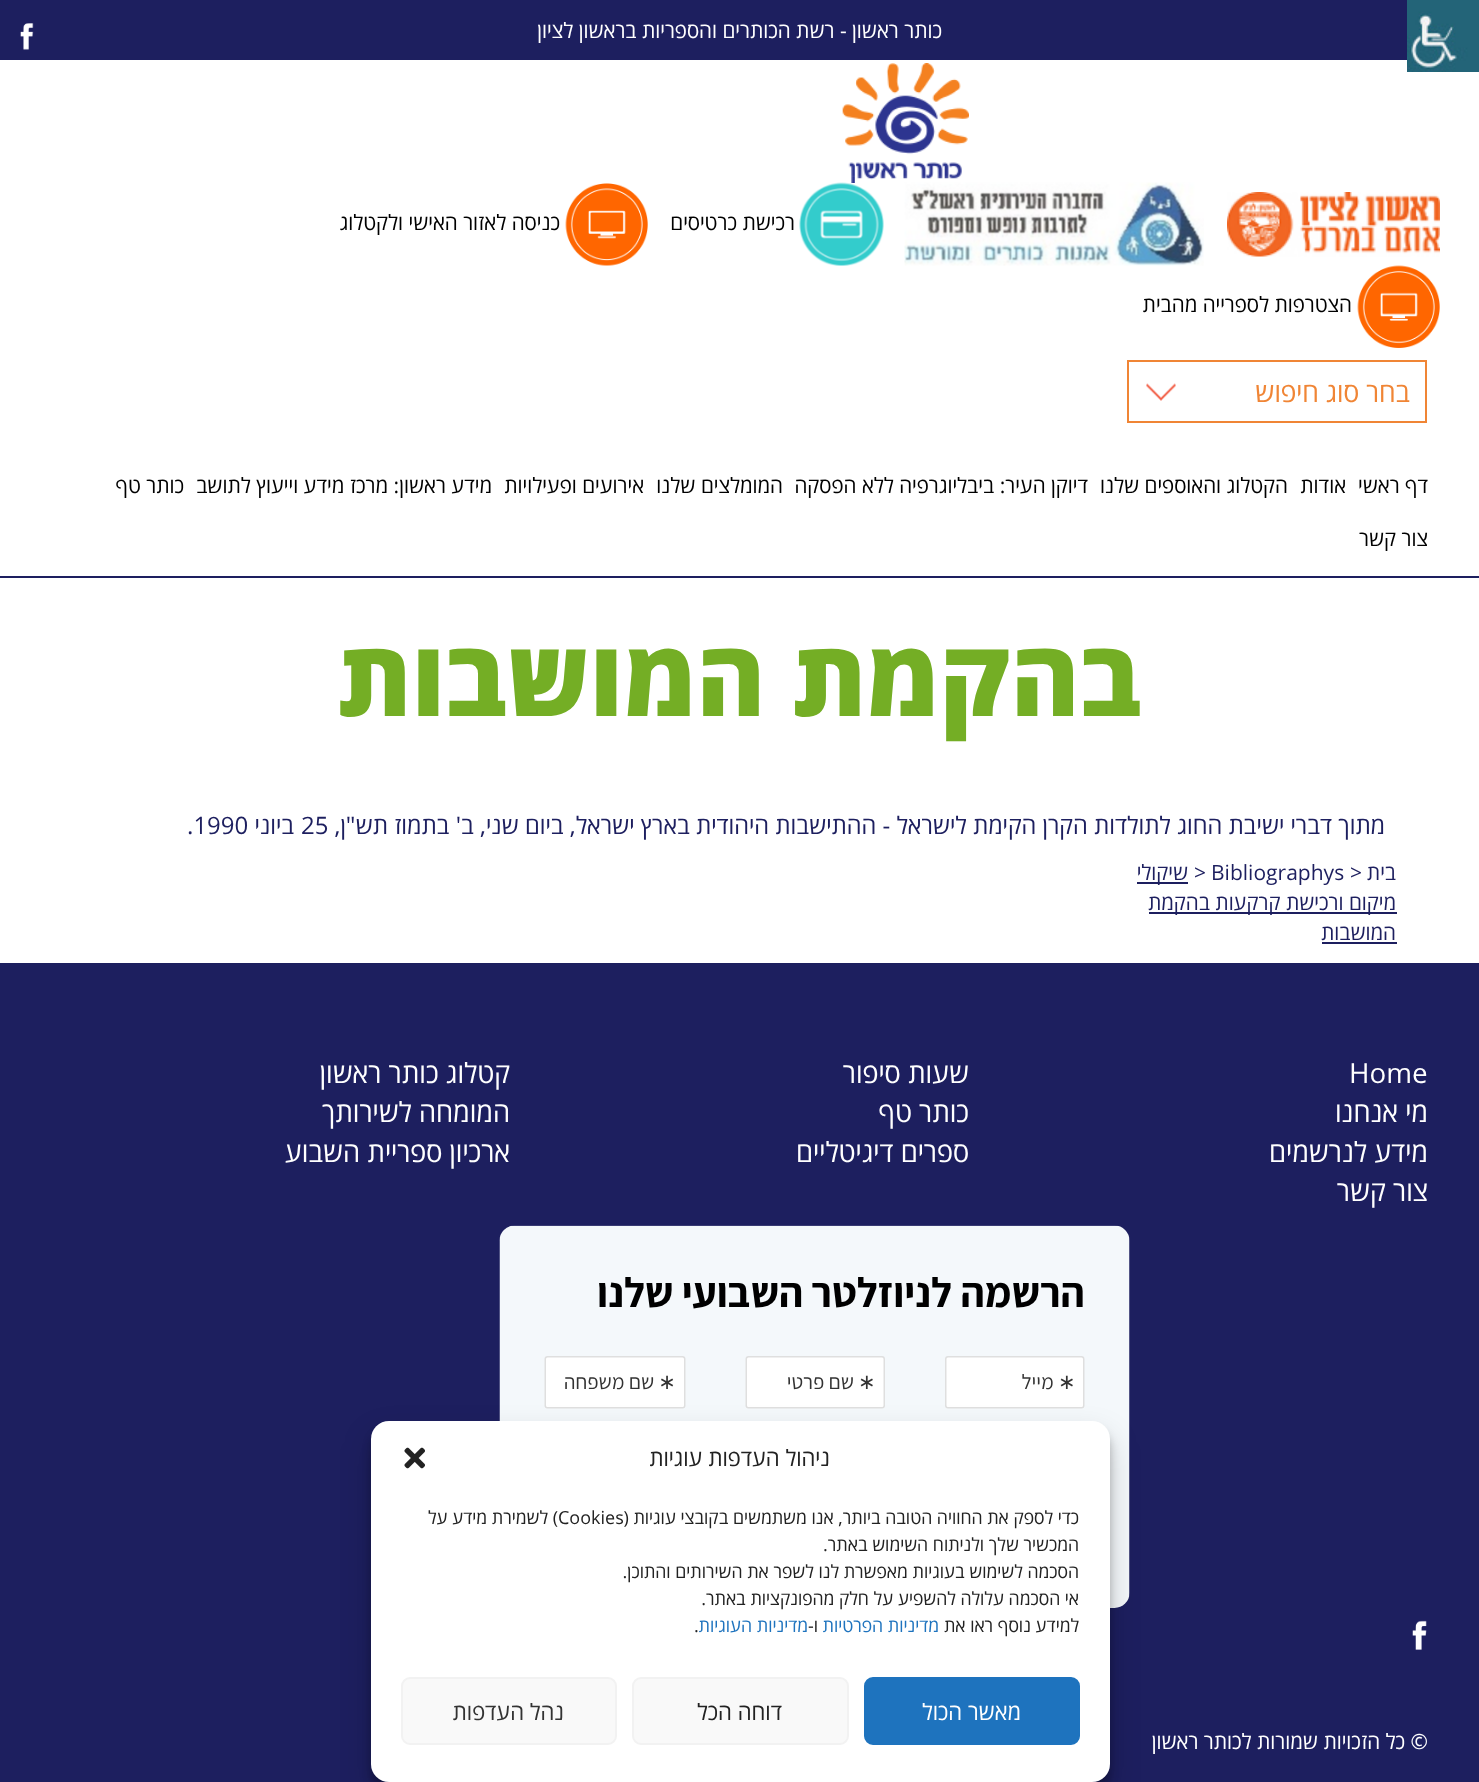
<!DOCTYPE html>
<meta charset="utf-8">
<style>body { margin: 0 } canvas { display: block }</style>
<canvas id="canvas" width="1479" height="1782"></canvas>
<script type="module">
  const canvas = document.getElementById("canvas");
  const ctx = canvas.getContext("2d");
  ctx.miterLimit = 4;
  ctx.fontKerning = "normal";
  async function loadImage(src) {
    const img = new Image();
    img.src = src;
    await img.decode();
    return img;
  }

  ctx.fillStyle = "#ffffff";
  ctx.fillRect(0, 0, 1479, 1782);
  ctx.drawImage(await loadImage("img1.png"), 1407, 0, 72, 72);
  ctx.fillStyle = "#1d1f5f";
  ctx.fillRect(0, 576, 1479, 2);
  ctx.fillRect(0, 0, 1407, 60);
  ctx.direction = "rtl";
  ctx.font = "21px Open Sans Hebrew";
  ctx.fillStyle = "#ffffff";
  ctx.fillText("כותר ראשון - רשת הכותרים והספריות בראשון לציון", 942, 38);
  ctx.drawImage(await loadImage("img2.png"), 20, 23, 14, 27);
  ctx.drawImage(await loadImage("img3.png"), 842, 63, 127, 120);
  ctx.drawImage(await loadImage("img4.png"), 1227, 192, 213, 65);
  ctx.drawImage(await loadImage("img5.png"), 904, 182, 300, 84);
  ctx.drawImage(await loadImage("img6.png"), 799, 182, 85, 84);
  ctx.fillStyle = "#000000";
  ctx.fillText("רכישת כרטיסים", 795, 230);
  ctx.drawImage(await loadImage("img7.png"), 565, 183, 83, 83);
  ctx.fillText("כניסה לאזור האישי ולקטלוג", 560, 230);
  ctx.drawImage(await loadImage("img8.png"), 1357, 265, 83, 83);
  ctx.fillText("הצטרפות לספרייה מהבית", 1352, 312);
  ctx.strokeStyle = "#f08535";
  ctx.lineWidth = 2;
  ctx.strokeRect(1128, 361, 298, 61);
  ctx.font = "27px Open Sans Hebrew";
  ctx.fillStyle = "#f08535";
  ctx.fillText("בחר סוג חיפוש", 1410, 402);
  ctx.drawImage(await loadImage("img9.png"), 1146, 383, 30, 18);
  ctx.font = "21px Open Sans Hebrew";
  ctx.fillStyle = "#000000";
  ctx.fillText("דף ראשי", 1428, 493);
  ctx.fillText("אודות", 1346, 493);
  ctx.fillText("הקטלוג והאוספים שלנו", 1288, 493);
  ctx.fillText("דיוקן העיר: ביבליוגרפיה ללא הפסקה", 1088, 493);
  ctx.fillText("המומלצים שלנו", 783, 493);
  ctx.fillText("אירועים ופעילויות", 644, 493);
  ctx.fillText("מידע ראשון: מרכז מידע וייעוץ לתושב", 492, 493);
  ctx.fillText("כותר טף", 184, 493);
  ctx.fillText("צור קשר", 1428, 546);
  ctx.font = "800 105px Open Sans Hebrew";
  ctx.fillStyle = "#74ae25";
  ctx.fillText("בהקמת המושבות", 1141, 716);
  ctx.font = "24px Open Sans Hebrew";
  ctx.fillStyle = "#1d1f5f";
  ctx.fillText("מתוך דברי ישיבת החוג לתולדות הקרן הקימת לישראל - ההתישבות היהודית בארץ ישראל, ביום שני, ב' בתמוז תש\"ן,", 1385, 834);
  ctx.direction = "ltr";
  ctx.fillText("25", 301, 834);
  ctx.direction = "rtl";
  ctx.fillText("ביוני", 294, 834);
  ctx.direction = "ltr";
  ctx.fillText(".1990", 187, 834);
  ctx.direction = "rtl";
  ctx.font = "21px Open Sans Hebrew";
  ctx.fillText("בית", 1396, 880);
  ctx.direction = "ltr";
  ctx.fillText(">", 1350, 880);
  ctx.fillText("Bibliographys", 1211, 880);
  ctx.fillText(">", 1194, 880);
  ctx.fillRect(1137, 882, 51, 2);
  ctx.direction = "rtl";
  ctx.fillText("שיקולי", 1188, 880);
  ctx.fillRect(1149, 912, 248, 2);
  ctx.fillText("מיקום ורכישת קרקעות בהקמת", 1396, 910);
  ctx.fillText("המושבות", 1396, 940);
  ctx.fillRect(1322, 942, 75, 2);
  ctx.fillRect(0, 963, 1479, 819);
  ctx.direction = "ltr";
  ctx.font = "27.75px Open Sans Hebrew";
  ctx.fillStyle = "#ffffff";
  ctx.fillText("Home", 1349, 1083);
  ctx.direction = "rtl";
  ctx.fillText("מי אנחנו", 1428, 1122);
  ctx.fillText("מידע לנרשמים", 1428, 1162);
  ctx.fillText("צור קשר", 1428, 1201);
  ctx.fillText("שעות סיפור", 969, 1083);
  ctx.fillText("כותר טף", 969, 1122);
  ctx.fillText("ספרים דיגיטליים", 969, 1162);
  ctx.fillText("קטלוג כותר ראשון", 510, 1083);
  ctx.fillText("המומחה לשירותך", 510, 1122);
  ctx.fillText("ארכיון ספריית השבוע", 510, 1162);
  ctx.drawImage(await loadImage("img10.png"), 499, 1225, 631, 383);
  ctx.drawImage(await loadImage("img11.png"), 1412, 1620, 15, 30);
  ctx.font = "21px Open Sans Hebrew";
  ctx.fillText("© כל הזכויות שמורות לכותר ראשון", 1428, 1749);
  ctx.fillStyle = "rgba(0, 0, 0, 0.23)";
  ctx.filter = "blur(4.5px)";
  ctx.beginPath();
  ctx.roundRect(371, 1430, 739, 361, 18);
  ctx.fill();
  ctx.filter = "none";
  ctx.fillStyle = "rgba(0, 0, 0, 0.19)";
  ctx.filter = "blur(15px)";
  ctx.beginPath();
  ctx.roundRect(371, 1436, 739, 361, 18);
  ctx.fill();
  ctx.filter = "none";
  ctx.fillStyle = "#ffffff";
  ctx.beginPath();
  ctx.roundRect(371, 1421, 739, 361, 18);
  ctx.fill();
  ctx.font = "22.5px Open Sans Hebrew";
  ctx.fillStyle = "#222222";
  ctx.fillText("ניהול העדפות עוגיות", 830, 1466);
  ctx.drawImage(await loadImage("img12.png"), 404, 1447, 21, 22);
  ctx.font = "18px Open Sans Hebrew";
  ctx.fillText("כדי לספק את החוויה הטובה ביותר, אנו משתמשים בקובצי עוגיות (", 1079, 1524);
  ctx.direction = "ltr";
  ctx.fillText("Cookies", 558, 1524);
  ctx.direction = "rtl";
  ctx.fillText(") לשמירת מידע על", 558, 1524);
  ctx.fillText("המכשיר שלך ולניתוח השימוש באתר.", 1079, 1551);
  ctx.fillText("הסכמה לשימוש בעוגיות מאפשרת לנו לשפר את השירותים והתוכן.", 1079, 1578);
  ctx.fillText("אי הסכמה עלולה להשפיע על חלק מהפונקציות באתר.", 1079, 1605);
  ctx.fillText("למידע נוסף ראו את", 1079, 1632);
  ctx.fillStyle = "#1e73be";
  ctx.fillText("מדיניות הפרטיות", 939, 1632);
  ctx.fillStyle = "#222222";
  ctx.fillText("ו-", 818, 1632);
  ctx.fillStyle = "#1e73be";
  ctx.fillText("מדיניות העוגיות", 808, 1632);
  ctx.direction = "ltr";
  ctx.fillStyle = "#222222";
  ctx.fillText(".", 694, 1632);
  ctx.fillStyle = "#1e73be";
  ctx.beginPath();
  ctx.roundRect(865, 1678, 214, 66, 8);
  ctx.fill();
  ctx.strokeStyle = "#1e73be";
  ctx.stroke();
  ctx.direction = "rtl";
  ctx.font = "22.5px Open Sans Hebrew";
  ctx.fillStyle = "#ffffff";
  ctx.fillText("מאשר הכול", 1021, 1720);
  ctx.fillStyle = "#f9f9f9";
  ctx.beginPath();
  ctx.roundRect(633, 1678, 215, 66, 8);
  ctx.fill();
  ctx.strokeStyle = "#f2f2f2";
  ctx.stroke();
  ctx.fillStyle = "#222222";
  ctx.fillText("דוחה הכל", 782, 1720);
  ctx.fillStyle = "#f9f9f9";
  ctx.beginPath();
  ctx.roundRect(402, 1678, 214, 66, 8);
  ctx.fill();
  ctx.stroke();
  ctx.fillStyle = "#333333";
  ctx.fillText("נהל העדפות", 564, 1720);
</script>
